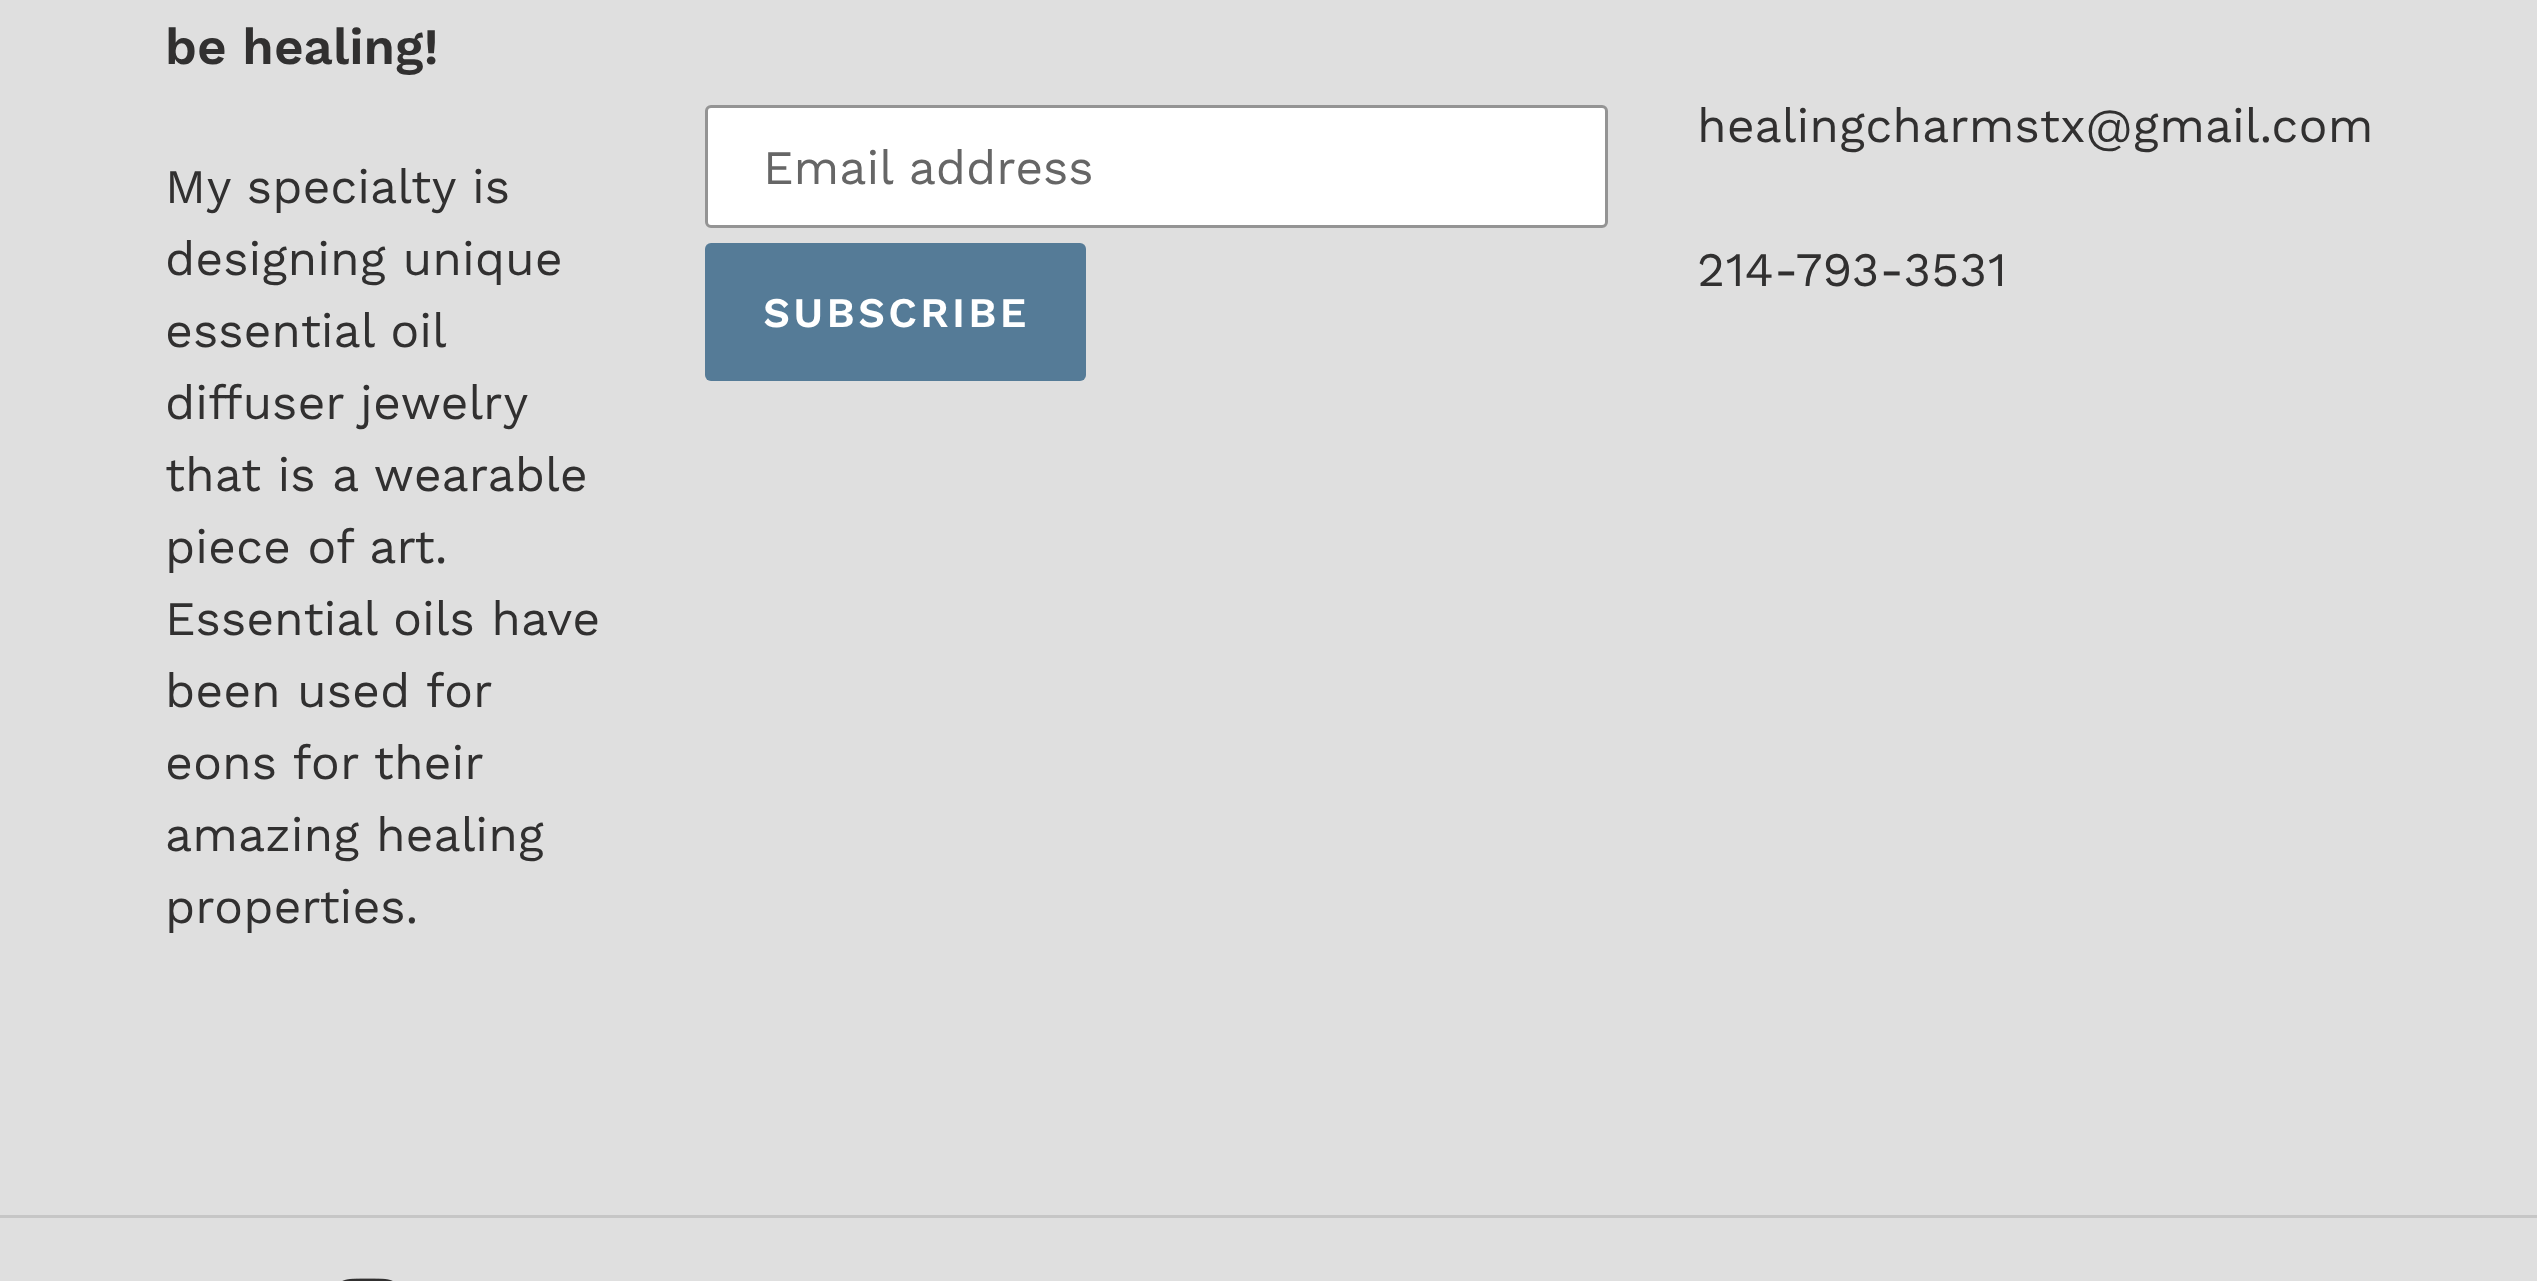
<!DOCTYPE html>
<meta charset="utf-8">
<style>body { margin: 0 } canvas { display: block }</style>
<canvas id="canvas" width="2537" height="1281"></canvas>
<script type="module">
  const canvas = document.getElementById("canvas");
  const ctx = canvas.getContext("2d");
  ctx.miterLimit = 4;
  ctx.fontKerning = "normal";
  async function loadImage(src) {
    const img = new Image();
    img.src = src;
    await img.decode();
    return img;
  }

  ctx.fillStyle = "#dfdfdf";
  ctx.fillRect(0, 0, 2537, 1281);
  ctx.font = "600 51px Work Sans";
  ctx.fillStyle = "#313030";
  ctx.fillText("be healing!", 165, 64);
  ctx.font = "48px Work Sans";
  ctx.fillText("My specialty is", 165, 203);
  ctx.fillText("designing unique", 165, 275);
  ctx.fillText("essential oil", 165, 347);
  ctx.fillText("diffuser jewelry", 165, 419);
  ctx.fillText("that is a wearable", 165, 491);
  ctx.fillText("piece of art.", 165, 563);
  ctx.fillText("Essential oils have", 165, 635);
  ctx.fillText("been used for", 165, 707);
  ctx.fillText("eons for their", 165, 779);
  ctx.fillText("amazing healing", 165, 851);
  ctx.fillText("properties.", 165, 923);
  ctx.fillStyle = "#ffffff";
  ctx.beginPath();
  ctx.roundRect(706.5, 106.5, 900, 120, 4.5);
  ctx.fill();
  ctx.strokeStyle = "#949494";
  ctx.lineWidth = 3;
  ctx.stroke();
  ctx.fillStyle = "#666666";
  ctx.fillText("Email address", 763, 184);
  ctx.fillStyle = "#557b97";
  ctx.beginPath();
  ctx.roundRect(705, 243, 381, 138, 6);
  ctx.fill();
  ctx.letterSpacing = "3.25px";
  ctx.font = "600 42px Work Sans";
  ctx.fillStyle = "#ffffff";
  ctx.fillText("SUBSCRIBE", 763, 327);
  ctx.letterSpacing = "0px";
  ctx.font = "48px Work Sans";
  ctx.fillStyle = "#313030";
  ctx.fillText("healingcharmstx@gmail.com", 1697, 142);
  ctx.fillText("214-793-3531", 1697, 286);
  ctx.fillStyle = "#c6c6c6";
  ctx.fillRect(0, 1215, 2537, 3);
  ctx.drawImage(await loadImage("img1.png"), 342, 1278, 51, 3);
</script>
